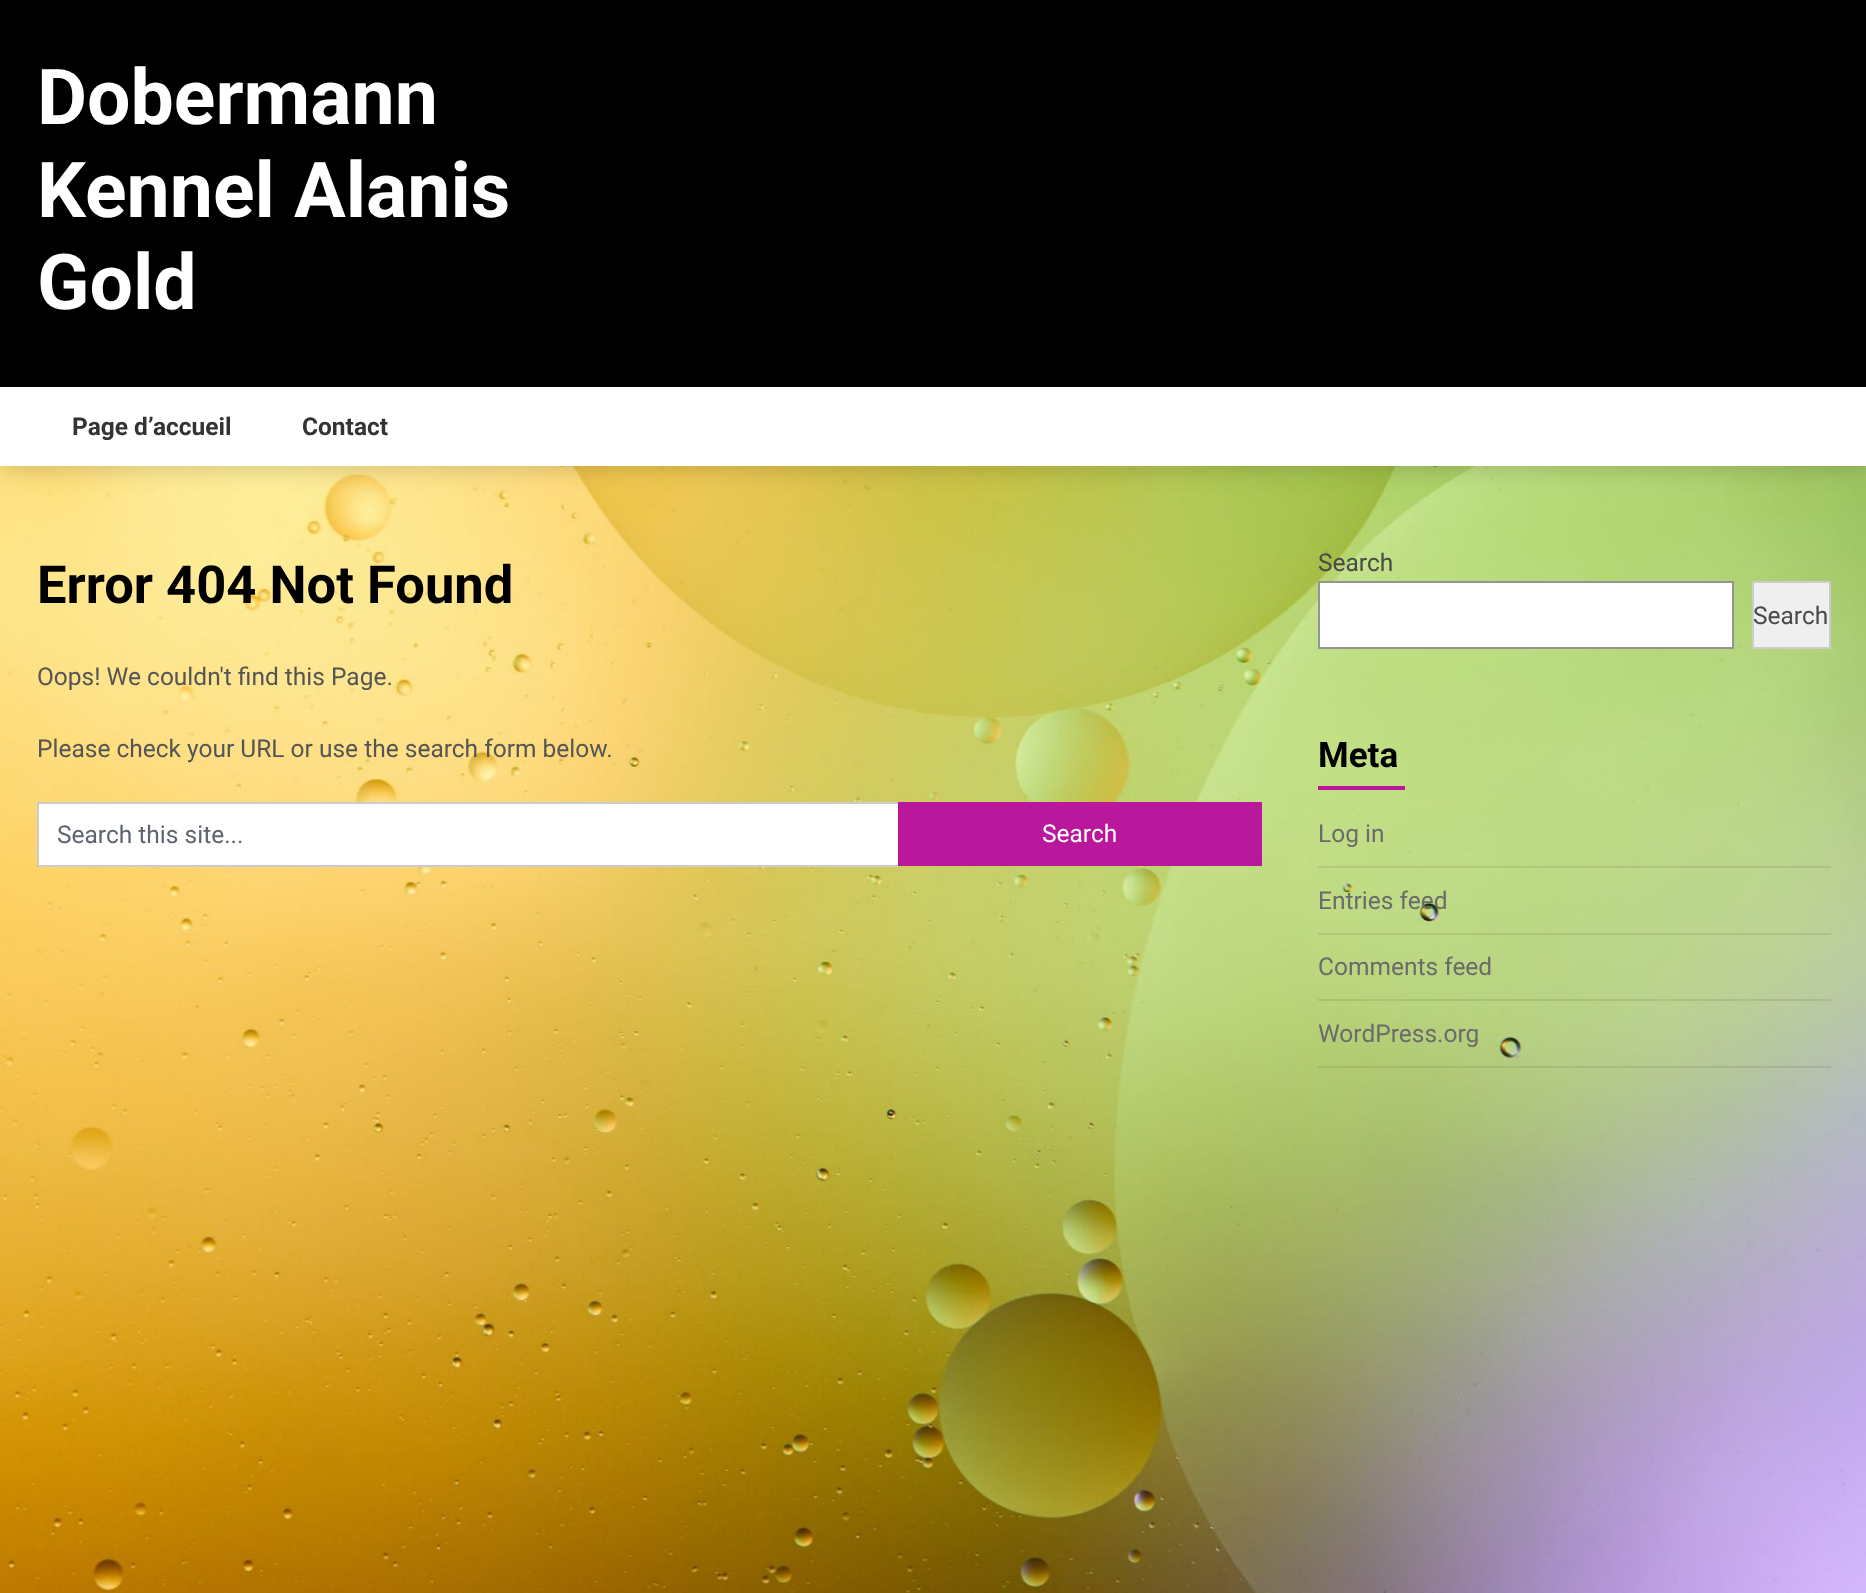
<!DOCTYPE html>
<meta charset="utf-8">
<style>body { margin: 0 } canvas { display: block }</style>
<canvas id="canvas" width="1866" height="1593"></canvas>
<script type="module">
  const canvas = document.getElementById("canvas");
  const ctx = canvas.getContext("2d");
  ctx.miterLimit = 4;
  ctx.fontKerning = "normal";
  async function loadImage(src) {
    const img = new Image();
    img.src = src;
    await img.decode();
    return img;
  }

  ctx.fillStyle = "#ffffff";
  ctx.fillRect(0, 0, 1866, 1593);
  ctx.drawImage(await loadImage("img1.png"), 0, 466, 1866, 1127);
  ctx.fillStyle = "rgba(0, 0, 0, 0.2)";
  ctx.filter = "blur(13px)";
  ctx.beginPath();
  ctx.rect(0, 0, 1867, 466);
  ctx.fill();
  ctx.filter = "none";
  ctx.fillStyle = "#000000";
  ctx.fillRect(0, 0, 1866, 387);
  ctx.font = "bold 77px Roboto";
  ctx.fillStyle = "#ffffff";
  ctx.fillText("Dobermann", 37, 124);
  ctx.fillText("Kennel Alanis", 37, 217);
  ctx.fillText("Gold", 37, 309);
  ctx.fillRect(0, 387, 1866, 79);
  ctx.font = "bold 24.5px Roboto";
  ctx.fillStyle = "#333333";
  ctx.fillText("Page d’accueil", 72, 435);
  ctx.fillText("Contact", 302, 435);
  ctx.font = "bold 52.5px Roboto";
  ctx.fillStyle = "#000000";
  ctx.fillText("Error 404 Not Found", 37, 603);
  ctx.font = "24.5px Roboto";
  ctx.fillStyle = "#555555";
  ctx.fillText("Oops! We couldn't find this Page.", 37, 685);
  ctx.fillText("Please check your URL or use the search form below.", 37, 757);
  ctx.fillStyle = "#ffffff";
  ctx.fillRect(39, 804, 859, 61);
  ctx.fillStyle = "#cccccc";
  ctx.fillRect(37, 802, 861, 2);
  ctx.fillRect(37, 865, 861, 2);
  ctx.fillRect(37, 802, 2, 64);
  ctx.fillStyle = "#5e656d";
  ctx.fillText("Search this site...", 57, 843);
  ctx.fillStyle = "#ba189c";
  ctx.fillRect(898, 802, 364, 64);
  ctx.fillStyle = "#ffffff";
  ctx.fillText("Search", 1042, 842);
  ctx.fillStyle = "#4a4a4a";
  ctx.fillText("Search", 1318, 571);
  ctx.fillStyle = "#ffffff";
  ctx.beginPath();
  ctx.rect(1319, 582, 414, 66);
  ctx.fill();
  ctx.strokeStyle = "#949494";
  ctx.lineWidth = 2;
  ctx.stroke();
  ctx.fillStyle = "#efefef";
  ctx.beginPath();
  ctx.rect(1753, 582, 77, 66);
  ctx.fill();
  ctx.strokeStyle = "#cccccc";
  ctx.stroke();
  ctx.fillStyle = "#4a4a4a";
  ctx.fillText("Search", 1753, 624);
  ctx.font = "bold 35px Roboto";
  ctx.fillStyle = "#000000";
  ctx.fillText("Meta", 1318, 767);
  ctx.fillStyle = "#ba189c";
  ctx.fillRect(1318, 786, 87, 4);
  ctx.fillStyle = "rgba(0, 0, 0, 0.08)";
  ctx.fillRect(1318, 866, 513, 2);
  ctx.font = "24.5px Roboto";
  ctx.fillStyle = "#6b6b6b";
  ctx.fillText("Log in", 1318, 842);
  ctx.fillStyle = "rgba(0, 0, 0, 0.08)";
  ctx.fillRect(1318, 933, 513, 2);
  ctx.fillStyle = "#6b6b6b";
  ctx.fillText("Entries feed", 1318, 909);
  ctx.fillStyle = "rgba(0, 0, 0, 0.08)";
  ctx.fillRect(1318, 999, 513, 2);
  ctx.fillStyle = "#6b6b6b";
  ctx.fillText("Comments feed", 1318, 975);
  ctx.fillStyle = "rgba(0, 0, 0, 0.08)";
  ctx.fillRect(1318, 1066, 513, 2);
  ctx.fillStyle = "#6b6b6b";
  ctx.fillText("WordPress.org", 1318, 1042);
</script>
